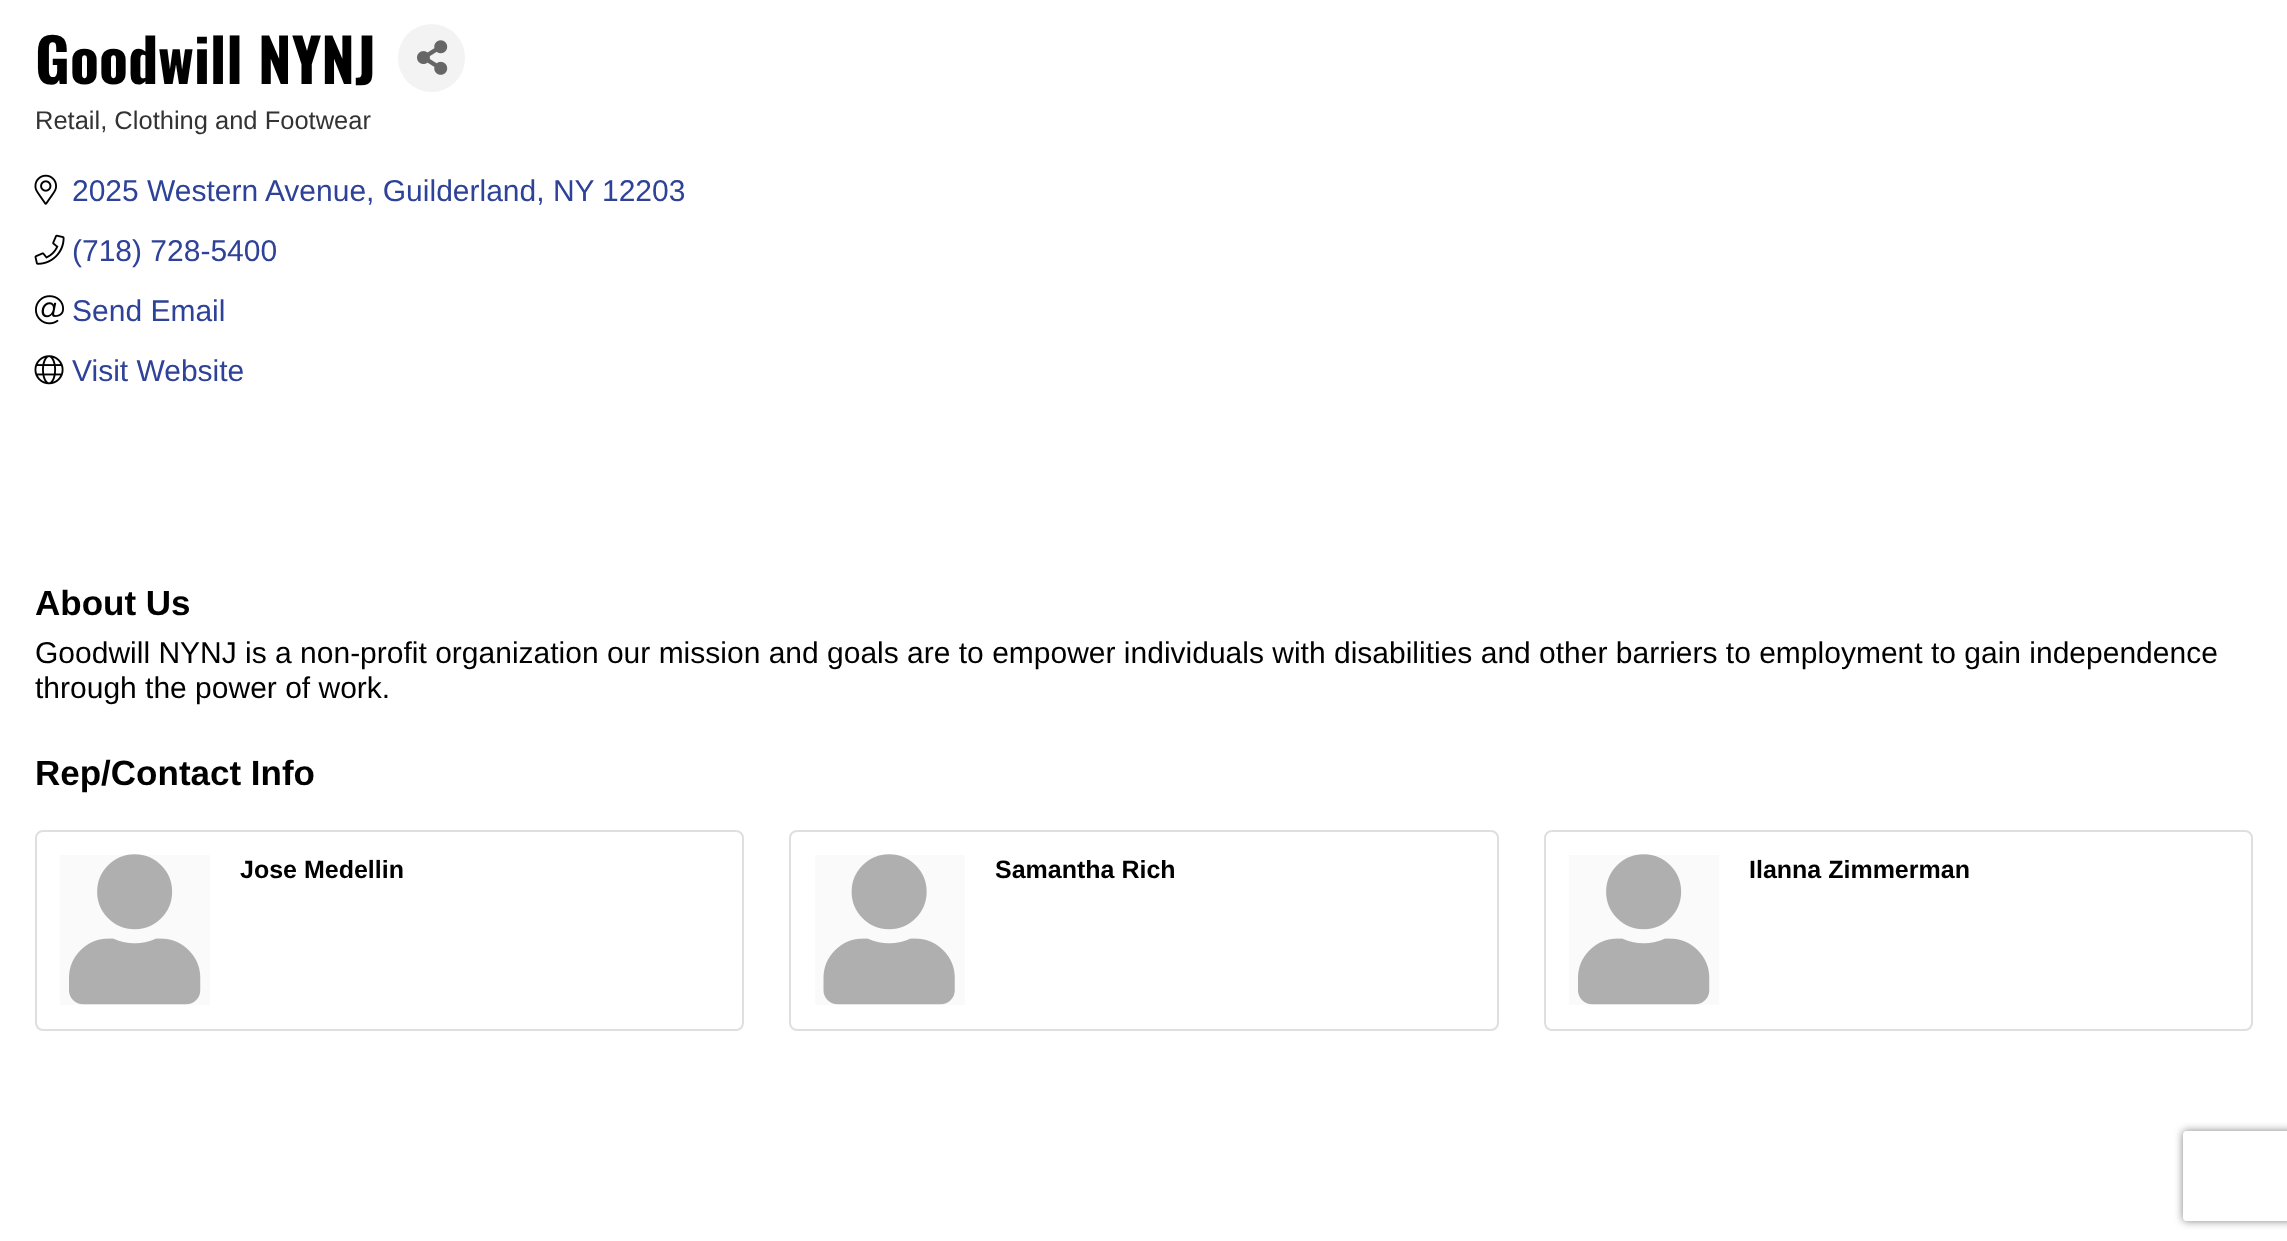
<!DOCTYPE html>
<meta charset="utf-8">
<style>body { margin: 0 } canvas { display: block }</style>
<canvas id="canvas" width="2287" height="1241"></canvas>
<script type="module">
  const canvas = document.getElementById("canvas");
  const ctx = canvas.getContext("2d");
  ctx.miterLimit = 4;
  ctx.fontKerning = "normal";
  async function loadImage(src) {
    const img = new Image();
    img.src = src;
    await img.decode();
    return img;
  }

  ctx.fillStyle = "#ffffff";
  ctx.fillRect(0, 0, 2287, 1241);
  ctx.font = "bold 60px Oswald";
  ctx.fillStyle = "#000000";
  ctx.fillText("Goodwill NYNJ", 35, 84);
  ctx.fillStyle = "#f3f3f3";
  ctx.beginPath();
  ctx.roundRect(398, 24, 67, 68, 33.5);
  ctx.fill();
  ctx.drawImage(await loadImage("img1.png"), 417, 40, 31, 35);
  ctx.font = "25.5px Liberation Sans";
  ctx.fillStyle = "#333333";
  ctx.fillText("Retail, Clothing and Footwear", 35, 129);
  ctx.drawImage(await loadImage("img2.png"), 34, 174, 23, 31);
  ctx.font = "30px Liberation Sans";
  ctx.fillStyle = "#2e4298";
  ctx.fillText("2025 Western Avenue, Guilderland, NY", 72, 201);
  ctx.fillText("12203", 602, 201);
  ctx.drawImage(await loadImage("img3.png"), 34, 234, 31, 31);
  ctx.fillText("(718) 728-5400", 72, 261);
  ctx.drawImage(await loadImage("img4.png"), 35, 295, 29, 30);
  ctx.fillText("Send Email", 72, 321);
  ctx.drawImage(await loadImage("img5.png"), 34, 355, 30, 30);
  ctx.fillText("Visit Website", 72, 381);
  ctx.font = "bold 35px Liberation Sans";
  ctx.fillStyle = "#000000";
  ctx.fillText("About Us", 35, 615);
  ctx.font = "30px Liberation Sans";
  ctx.fillText("Goodwill NYNJ is a non-profit organization our mission and goals are to empower individuals with disabilities and other barriers to employment to gain independence", 35, 663);
  ctx.fillText("through the power of work.", 35, 698);
  ctx.font = "bold 35px Liberation Sans";
  ctx.fillText("Rep/Contact Info", 35, 785);
  ctx.beginPath();
  ctx.roundRect(36, 831, 707, 199, 7);
  ctx.strokeStyle = "#dfdfdf";
  ctx.lineWidth = 2;
  ctx.stroke();
  ctx.fillStyle = "#fafafa";
  ctx.fillRect(60, 855, 150, 150);
  ctx.drawImage(await loadImage("img6.png"), 69, 854, 132, 151);
  ctx.font = "bold 25px Liberation Sans";
  ctx.fillStyle = "#000000";
  ctx.fillText("Jose Medellin", 240, 878);
  ctx.beginPath();
  ctx.roundRect(790, 831, 708, 199, 7);
  ctx.stroke();
  ctx.fillStyle = "#fafafa";
  ctx.fillRect(815, 855, 150, 150);
  ctx.drawImage(await loadImage("img7.png"), 823, 854, 132, 151);
  ctx.fillStyle = "#000000";
  ctx.fillText("Samantha Rich", 995, 878);
  ctx.beginPath();
  ctx.roundRect(1545, 831, 707, 199, 7);
  ctx.stroke();
  ctx.fillStyle = "#fafafa";
  ctx.fillRect(1569, 855, 150, 150);
  ctx.drawImage(await loadImage("img6.png"), 1578, 854, 132, 151);
  ctx.fillStyle = "#000000";
  ctx.fillText("Ilanna Zimmerman", 1749, 878);
  ctx.save();
  ctx.beginPath();
  ctx.moveTo(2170, 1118);
  ctx.lineTo(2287, 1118);
  ctx.lineTo(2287, 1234);
  ctx.lineTo(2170, 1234);
  ctx.closePath();
  ctx.moveTo(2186, 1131);
  ctx.lineTo(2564, 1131);
  ctx.bezierCurveTo(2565.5, 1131, 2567, 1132.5, 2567, 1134);
  ctx.lineTo(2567, 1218);
  ctx.bezierCurveTo(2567, 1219.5, 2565.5, 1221, 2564, 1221);
  ctx.lineTo(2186, 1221);
  ctx.bezierCurveTo(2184.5, 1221, 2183, 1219.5, 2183, 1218);
  ctx.lineTo(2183, 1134);
  ctx.bezierCurveTo(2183, 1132.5, 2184.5, 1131, 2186, 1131);
  ctx.closePath();
  ctx.clip("evenodd");
  ctx.fillStyle = "#808080";
  ctx.filter = "blur(4px)";
  ctx.beginPath();
  ctx.roundRect(2183, 1131, 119, 90, 3);
  ctx.fill();
  ctx.filter = "none";
  ctx.restore();
</script>
